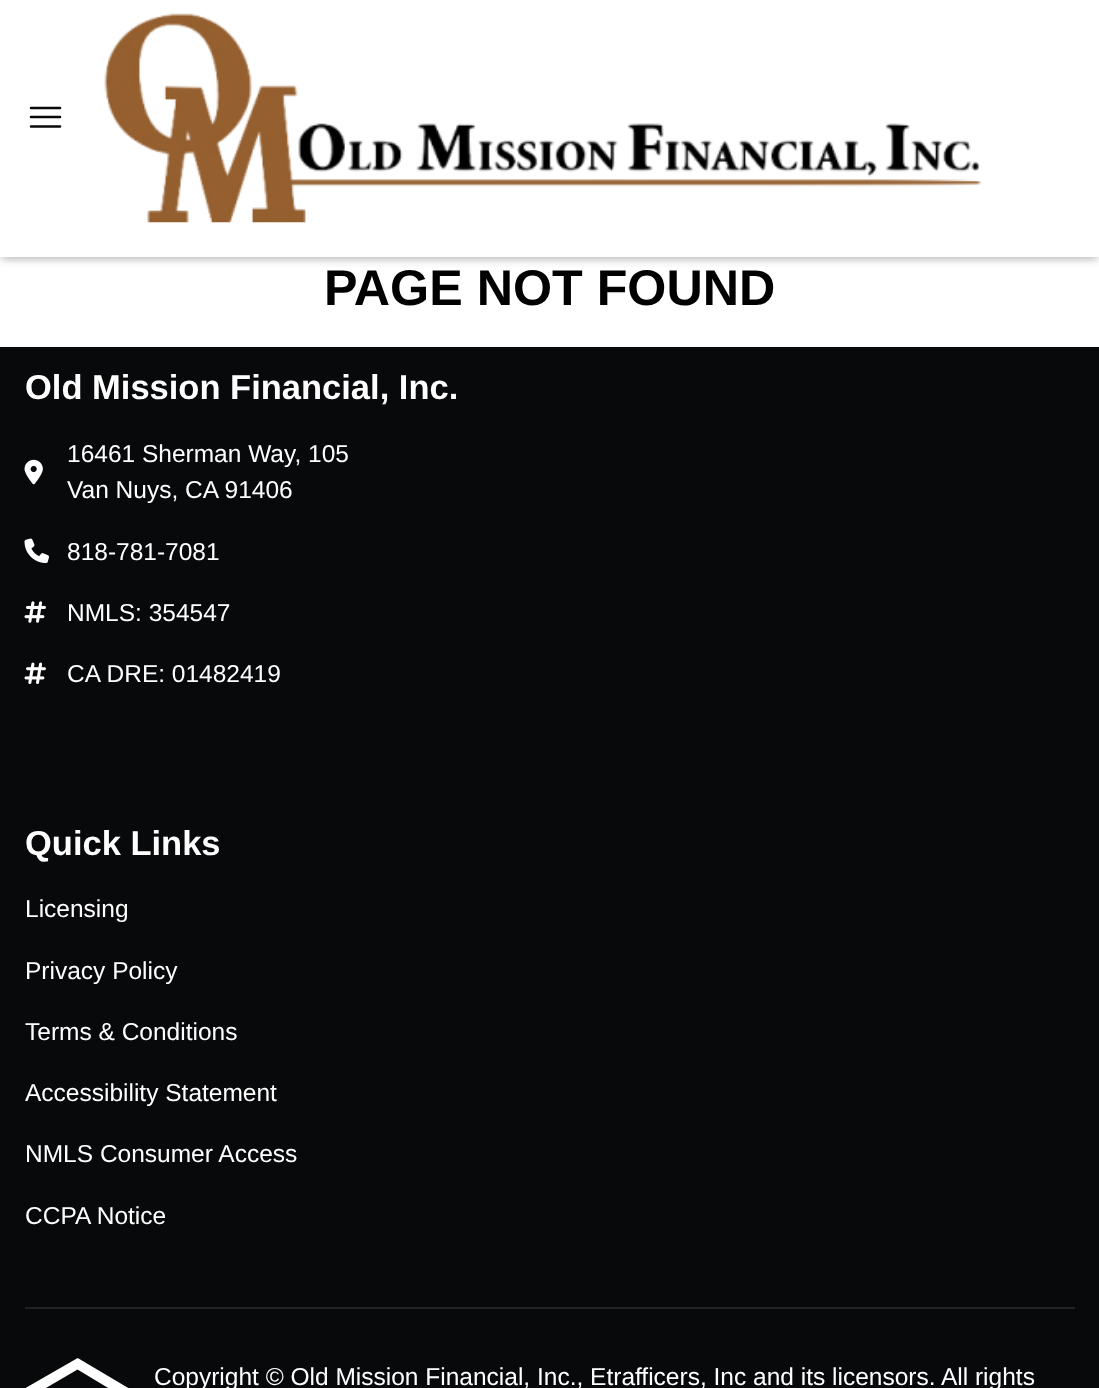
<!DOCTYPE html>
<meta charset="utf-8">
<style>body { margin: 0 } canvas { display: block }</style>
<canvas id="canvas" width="1099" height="1388"></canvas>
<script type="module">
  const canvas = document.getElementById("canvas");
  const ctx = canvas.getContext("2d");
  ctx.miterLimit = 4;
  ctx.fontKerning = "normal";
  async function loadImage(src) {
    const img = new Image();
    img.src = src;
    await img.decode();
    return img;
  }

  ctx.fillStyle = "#ffffff";
  ctx.fillRect(0, 0, 1099, 1388);
  ctx.save();
  ctx.beginPath();
  ctx.rect(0, 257, 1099, 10);
  ctx.clip();
  ctx.fillStyle = "rgba(0, 0, 0, 0.1)";
  ctx.filter = "blur(9px)";
  ctx.beginPath();
  ctx.rect(0, 2, 1099, 257);
  ctx.fill();
  ctx.filter = "none";
  ctx.restore();
  ctx.save();
  ctx.beginPath();
  ctx.rect(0, 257, 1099, 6);
  ctx.clip();
  ctx.fillStyle = "rgba(0, 0, 0, 0.2)";
  ctx.filter = "blur(3.5px)";
  ctx.beginPath();
  ctx.rect(2, 5, 1095, 254);
  ctx.fill();
  ctx.filter = "none";
  ctx.restore();
  ctx.beginPath();
  ctx.moveTo(31, 108);
  ctx.lineTo(60, 108);
  ctx.moveTo(31, 117);
  ctx.lineTo(60, 117);
  ctx.moveTo(31, 126.5);
  ctx.lineTo(60, 126.5);
  ctx.strokeStyle = "#08090b";
  ctx.lineWidth = 2.6;
  ctx.lineCap = "round";
  ctx.lineJoin = "round";
  ctx.stroke();
  ctx.drawImage(await loadImage("img1.png"), 104, 13, 878, 210);
  ctx.font = "bold 50.25px Liberation Sans";
  ctx.fillStyle = "#000000";
  ctx.fillText("PAGE NOT FOUND", 324, 305);
  ctx.fillStyle = "#08090b";
  ctx.fillRect(0, 347, 1099, 1041);
  ctx.font = "bold 34.5px Liberation Sans";
  ctx.fillStyle = "#ffffff";
  ctx.fillText("Old Mission Financial, Inc.", 25, 399);
  ctx.drawImage(await loadImage("img2.png"), 24, 459, 19, 26);
  ctx.font = "24.5px Liberation Sans";
  ctx.fillText("16461 Sherman Way, 105", 67, 462);
  ctx.fillText("Van Nuys, CA 91406", 67, 498);
  ctx.drawImage(await loadImage("img3.png"), 24, 538, 25, 26);
  ctx.fillText("818-781-7081", 67, 560);
  ctx.drawImage(await loadImage("img4.png"), 24, 601, 22, 22);
  ctx.fillText("NMLS: 354547", 67, 621);
  ctx.drawImage(await loadImage("img5.png"), 24, 662, 22, 22);
  ctx.fillText("CA DRE: 01482419", 67, 682);
  ctx.font = "bold 34.5px Liberation Sans";
  ctx.fillText("Quick Links", 25, 855);
  ctx.font = "24.5px Liberation Sans";
  ctx.fillText("Licensing", 25, 917);
  ctx.fillText("Privacy Policy", 25, 979);
  ctx.fillText("Terms & Conditions", 25, 1040);
  ctx.fillText("Accessibility Statement", 25, 1101);
  ctx.fillText("NMLS Consumer Access", 25, 1162);
  ctx.fillText("CCPA Notice", 25, 1224);
  ctx.fillStyle = "#212223";
  ctx.fillRect(25, 1307, 1050, 2);
  ctx.drawImage(await loadImage("img6.png"), 25, 1358, 104, 30);
  ctx.fillStyle = "#ffffff";
  ctx.fillText("Copyright © Old Mission Financial, Inc., Etrafficers, Inc and its licensors. All rights", 154, 1385);
</script>
